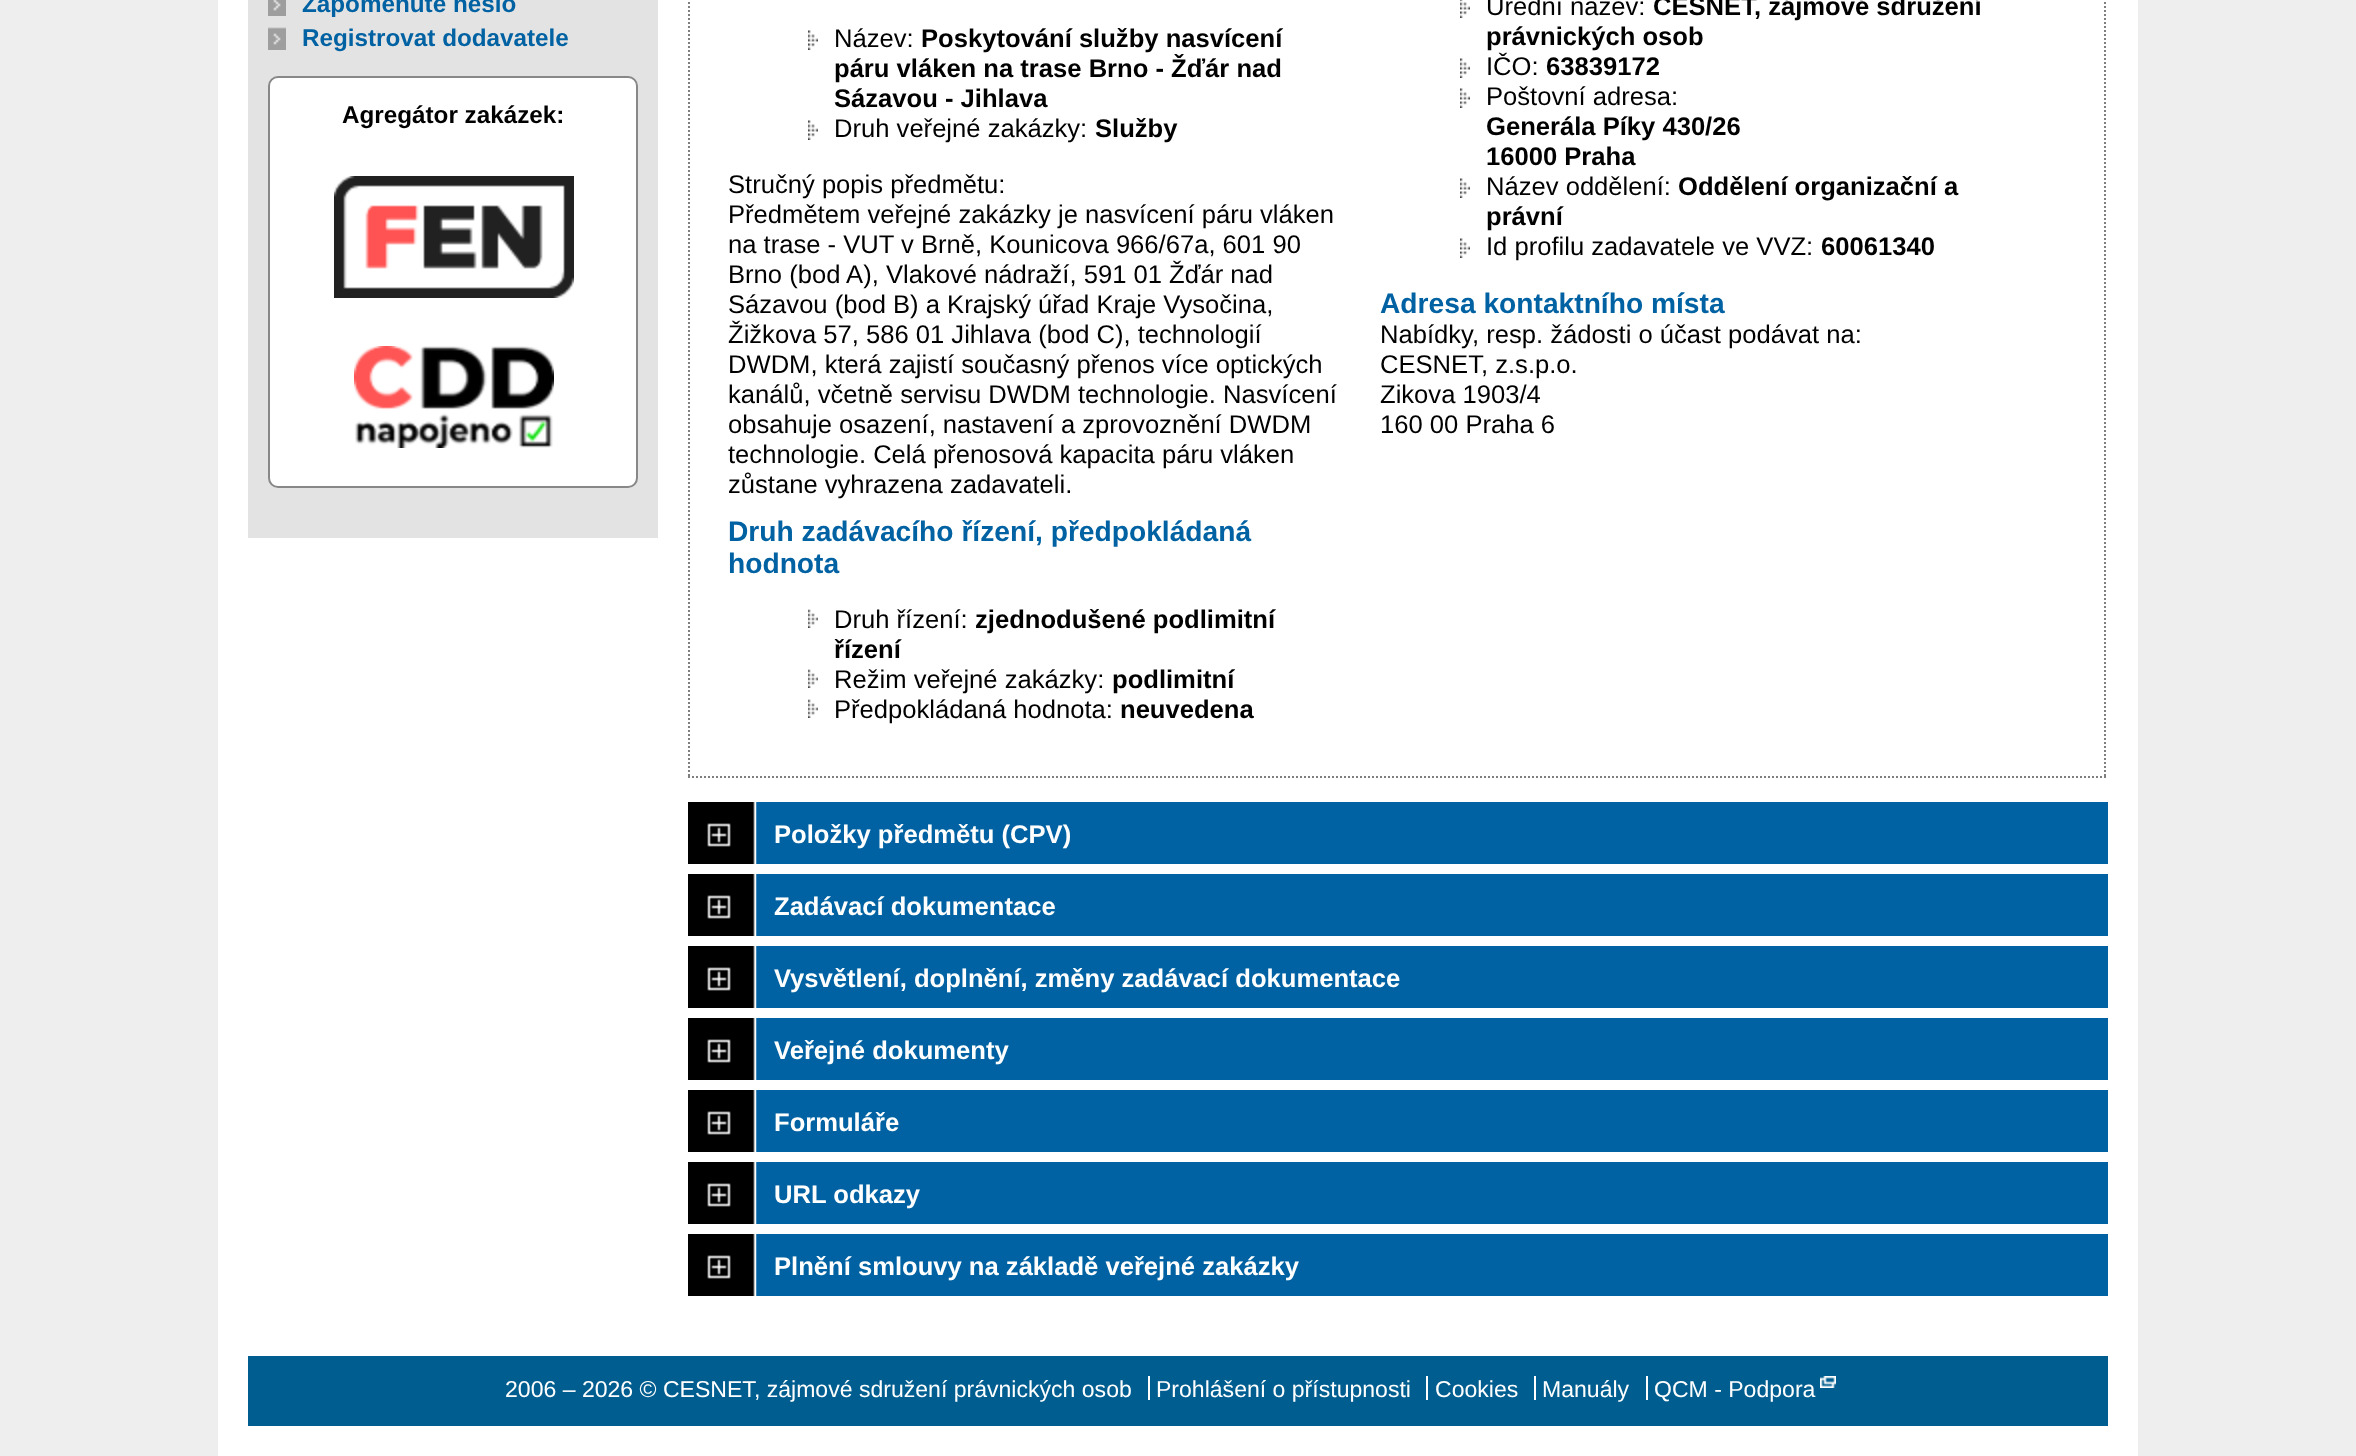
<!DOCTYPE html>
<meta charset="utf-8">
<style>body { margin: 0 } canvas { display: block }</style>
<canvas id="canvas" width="2356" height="1456"></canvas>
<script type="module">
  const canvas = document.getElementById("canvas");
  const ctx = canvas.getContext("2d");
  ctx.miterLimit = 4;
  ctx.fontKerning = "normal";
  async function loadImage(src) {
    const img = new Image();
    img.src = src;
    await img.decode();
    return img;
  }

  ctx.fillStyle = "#eeeeee";
  ctx.fillRect(0, 0, 2356, 1456);
  ctx.fillStyle = "#ffffff";
  ctx.fillRect(218, 0, 1920, 1456);
  ctx.fillStyle = "#e3e3e3";
  ctx.fillRect(248, 0, 410, 538);
  ctx.drawImage(await loadImage("img1.png"), 268, 0, 18, 16);
  ctx.font = "bold 24.25px Liberation Sans";
  ctx.fillStyle = "#0062a2";
  ctx.fillText("Zapomenuté heslo", 302, 12);
  ctx.drawImage(await loadImage("img2.png"), 268, 27, 18, 23);
  ctx.fillText("Registrovat dodavatele", 302, 46);
  ctx.fillStyle = "#ffffff";
  ctx.beginPath();
  ctx.roundRect(269, 77, 368, 410, 9);
  ctx.fill();
  ctx.strokeStyle = "#888888";
  ctx.lineWidth = 2;
  ctx.stroke();
  ctx.fillStyle = "#000000";
  ctx.fillText("Agregátor zakázek:", 342, 123);
  ctx.drawImage(await loadImage("img3.png"), 334, 176, 240, 122);
  ctx.drawImage(await loadImage("img4.png"), 354, 346, 200, 102);
  ctx.beginPath();
  ctx.moveTo(2105, -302);
  ctx.lineTo(2105, 778);
  ctx.strokeStyle = "#7f7f7f";
  ctx.setLineDash([2, 2]);
  ctx.stroke();
  ctx.beginPath();
  ctx.moveTo(688, 777);
  ctx.lineTo(2106, 777);
  ctx.stroke();
  ctx.beginPath();
  ctx.moveTo(689, -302);
  ctx.lineTo(689, 778);
  ctx.stroke();
  ctx.drawImage(await loadImage("img5.png"), 808, 30, 10, 20);
  ctx.font = "25.6px Liberation Sans";
  ctx.fillText("Název:", 834, 47);
  ctx.font = "bold 25.6px Liberation Sans";
  ctx.fillText("Poskytování služby nasvícení", 921, 47);
  ctx.fillText("páru vláken na trase Brno - Žďár nad", 834, 77);
  ctx.fillText("Sázavou - Jihlava", 834, 107);
  ctx.drawImage(await loadImage("img5.png"), 808, 120, 10, 20);
  ctx.font = "25.6px Liberation Sans";
  ctx.fillText("Druh veřejné zakázky:", 834, 137);
  ctx.font = "bold 25.6px Liberation Sans";
  ctx.fillText("Služby", 1095, 137);
  ctx.font = "25.6px Liberation Sans";
  ctx.fillText("Stručný popis předmětu:", 728, 193);
  ctx.fillText("Předmětem veřejné zakázky je nasvícení páru vláken", 728, 223);
  ctx.fillText("na trase - VUT v Brně, Kounicova 966/67a, 601 90", 728, 253);
  ctx.fillText("Brno (bod A), Vlakové nádraží, 591 01 Žďár nad", 728, 283);
  ctx.fillText("Sázavou (bod B) a Krajský úřad Kraje Vysočina,", 728, 313);
  ctx.fillText("Žižkova 57, 586 01 Jihlava (bod C), technologií", 728, 343);
  ctx.fillText("DWDM, která zajistí současný přenos více optických", 728, 373);
  ctx.fillText("kanálů, včetně servisu DWDM technologie. Nasvícení", 728, 403);
  ctx.fillText("obsahuje osazení, nastavení a zprovoznění DWDM", 728, 433);
  ctx.fillText("technologie. Celá přenosová kapacita páru vláken", 728, 463);
  ctx.fillText("zůstane vyhrazena zadavateli.", 728, 493);
  ctx.font = "bold 28.2px Liberation Sans";
  ctx.fillStyle = "#0062a2";
  ctx.fillText("Druh zadávacího řízení, předpokládaná", 728, 541);
  ctx.fillText("hodnota", 728, 573);
  ctx.drawImage(await loadImage("img6.png"), 808, 609, 10, 19);
  ctx.font = "25.6px Liberation Sans";
  ctx.fillStyle = "#000000";
  ctx.fillText("Druh řízení:", 834, 628);
  ctx.font = "bold 25.6px Liberation Sans";
  ctx.fillText("zjednodušené podlimitní", 975, 628);
  ctx.fillText("řízení", 834, 658);
  ctx.drawImage(await loadImage("img6.png"), 808, 669, 10, 19);
  ctx.font = "25.6px Liberation Sans";
  ctx.fillText("Režim veřejné zakázky:", 834, 688);
  ctx.font = "bold 25.6px Liberation Sans";
  ctx.fillText("podlimitní", 1112, 688);
  ctx.drawImage(await loadImage("img6.png"), 808, 699, 10, 19);
  ctx.font = "25.6px Liberation Sans";
  ctx.fillText("Předpokládaná hodnota:", 834, 718);
  ctx.font = "bold 25.6px Liberation Sans";
  ctx.fillText("neuvedena", 1120, 718);
  ctx.drawImage(await loadImage("img7.png"), 1460, 0, 10, 18);
  ctx.font = "25.6px Liberation Sans";
  ctx.fillText("Úřední název:", 1486, 15);
  ctx.font = "bold 25.6px Liberation Sans";
  ctx.fillText("CESNET, zájmové sdružení", 1653, 15);
  ctx.fillText("právnických osob", 1486, 45);
  ctx.drawImage(await loadImage("img5.png"), 1460, 58, 10, 20);
  ctx.font = "25.6px Liberation Sans";
  ctx.fillText("IČO:", 1486, 75);
  ctx.font = "bold 25.6px Liberation Sans";
  ctx.fillText("63839172", 1546, 75);
  ctx.drawImage(await loadImage("img8.png"), 1460, 88, 10, 20);
  ctx.font = "25.6px Liberation Sans";
  ctx.fillText("Poštovní adresa:", 1486, 105);
  ctx.font = "bold 25.6px Liberation Sans";
  ctx.fillText("Generála Píky 430/26", 1486, 135);
  ctx.fillText("16000 Praha", 1486, 165);
  ctx.drawImage(await loadImage("img5.png"), 1460, 178, 10, 20);
  ctx.font = "25.6px Liberation Sans";
  ctx.fillText("Název oddělení:", 1486, 195);
  ctx.font = "bold 25.6px Liberation Sans";
  ctx.fillText("Oddělení organizační a", 1678, 195);
  ctx.fillText("právní", 1486, 225);
  ctx.drawImage(await loadImage("img8.png"), 1460, 238, 10, 20);
  ctx.font = "25.6px Liberation Sans";
  ctx.fillText("Id profilu zadavatele ve VVZ:", 1486, 255);
  ctx.font = "bold 25.6px Liberation Sans";
  ctx.fillText("60061340", 1821, 255);
  ctx.font = "bold 28.2px Liberation Sans";
  ctx.fillStyle = "#0062a2";
  ctx.fillText("Adresa kontaktního místa", 1380, 313);
  ctx.font = "25.6px Liberation Sans";
  ctx.fillStyle = "#000000";
  ctx.fillText("Nabídky, resp. žádosti o účast podávat na:", 1380, 343);
  ctx.fillText("CESNET, z.s.p.o.", 1380, 373);
  ctx.fillText("Zikova 1903/4", 1380, 403);
  ctx.fillText("160 00 Praha 6", 1380, 433);
  ctx.drawImage(await loadImage("img9.png"), 688, 802, 1420, 62);
  ctx.drawImage(await loadImage("img10.png"), 707, 802, 49, 62);
  ctx.font = "bold 25.6px Liberation Sans";
  ctx.fillStyle = "#ffffff";
  ctx.fillText("Položky předmětu (CPV)", 774, 843);
  ctx.drawImage(await loadImage("img9.png"), 688, 874, 1420, 62);
  ctx.drawImage(await loadImage("img10.png"), 707, 874, 49, 62);
  ctx.fillText("Zadávací dokumentace", 774, 915);
  ctx.drawImage(await loadImage("img9.png"), 688, 946, 1420, 62);
  ctx.drawImage(await loadImage("img10.png"), 707, 946, 49, 62);
  ctx.fillText("Vysvětlení, doplnění, změny zadávací dokumentace", 774, 987);
  ctx.drawImage(await loadImage("img9.png"), 688, 1018, 1420, 62);
  ctx.drawImage(await loadImage("img10.png"), 707, 1018, 49, 62);
  ctx.fillText("Veřejné dokumenty", 774, 1059);
  ctx.drawImage(await loadImage("img9.png"), 688, 1090, 1420, 62);
  ctx.drawImage(await loadImage("img10.png"), 707, 1090, 49, 62);
  ctx.fillText("Formuláře", 774, 1131);
  ctx.drawImage(await loadImage("img9.png"), 688, 1162, 1420, 62);
  ctx.drawImage(await loadImage("img10.png"), 707, 1162, 49, 62);
  ctx.fillText("URL odkazy", 774, 1203);
  ctx.drawImage(await loadImage("img9.png"), 688, 1234, 1420, 62);
  ctx.drawImage(await loadImage("img10.png"), 707, 1234, 49, 62);
  ctx.fillText("Plnění smlouvy na základě veřejné zakázky", 774, 1275);
  ctx.fillStyle = "#005d8f";
  ctx.fillRect(248, 1356, 1860, 70);
  ctx.font = "23.05px Liberation Sans";
  ctx.fillStyle = "#ffffff";
  ctx.fillText("2006 – 2026 © CESNET, zájmové sdružení právnických osob", 505, 1397);
  ctx.fillRect(1148, 1376, 2, 24);
  ctx.fillText("Prohlášení o přístupnosti", 1156, 1397);
  ctx.fillRect(1426, 1376, 2, 24);
  ctx.fillText("Cookies", 1435, 1397);
  ctx.fillRect(1534, 1376, 2, 24);
  ctx.fillText("Manuály", 1542, 1397);
  ctx.fillRect(1646, 1376, 2, 24);
  ctx.fillText("QCM - Podpora", 1654, 1397);
  ctx.drawImage(await loadImage("img11.png"), 1820, 1376, 16, 12);
</script>
